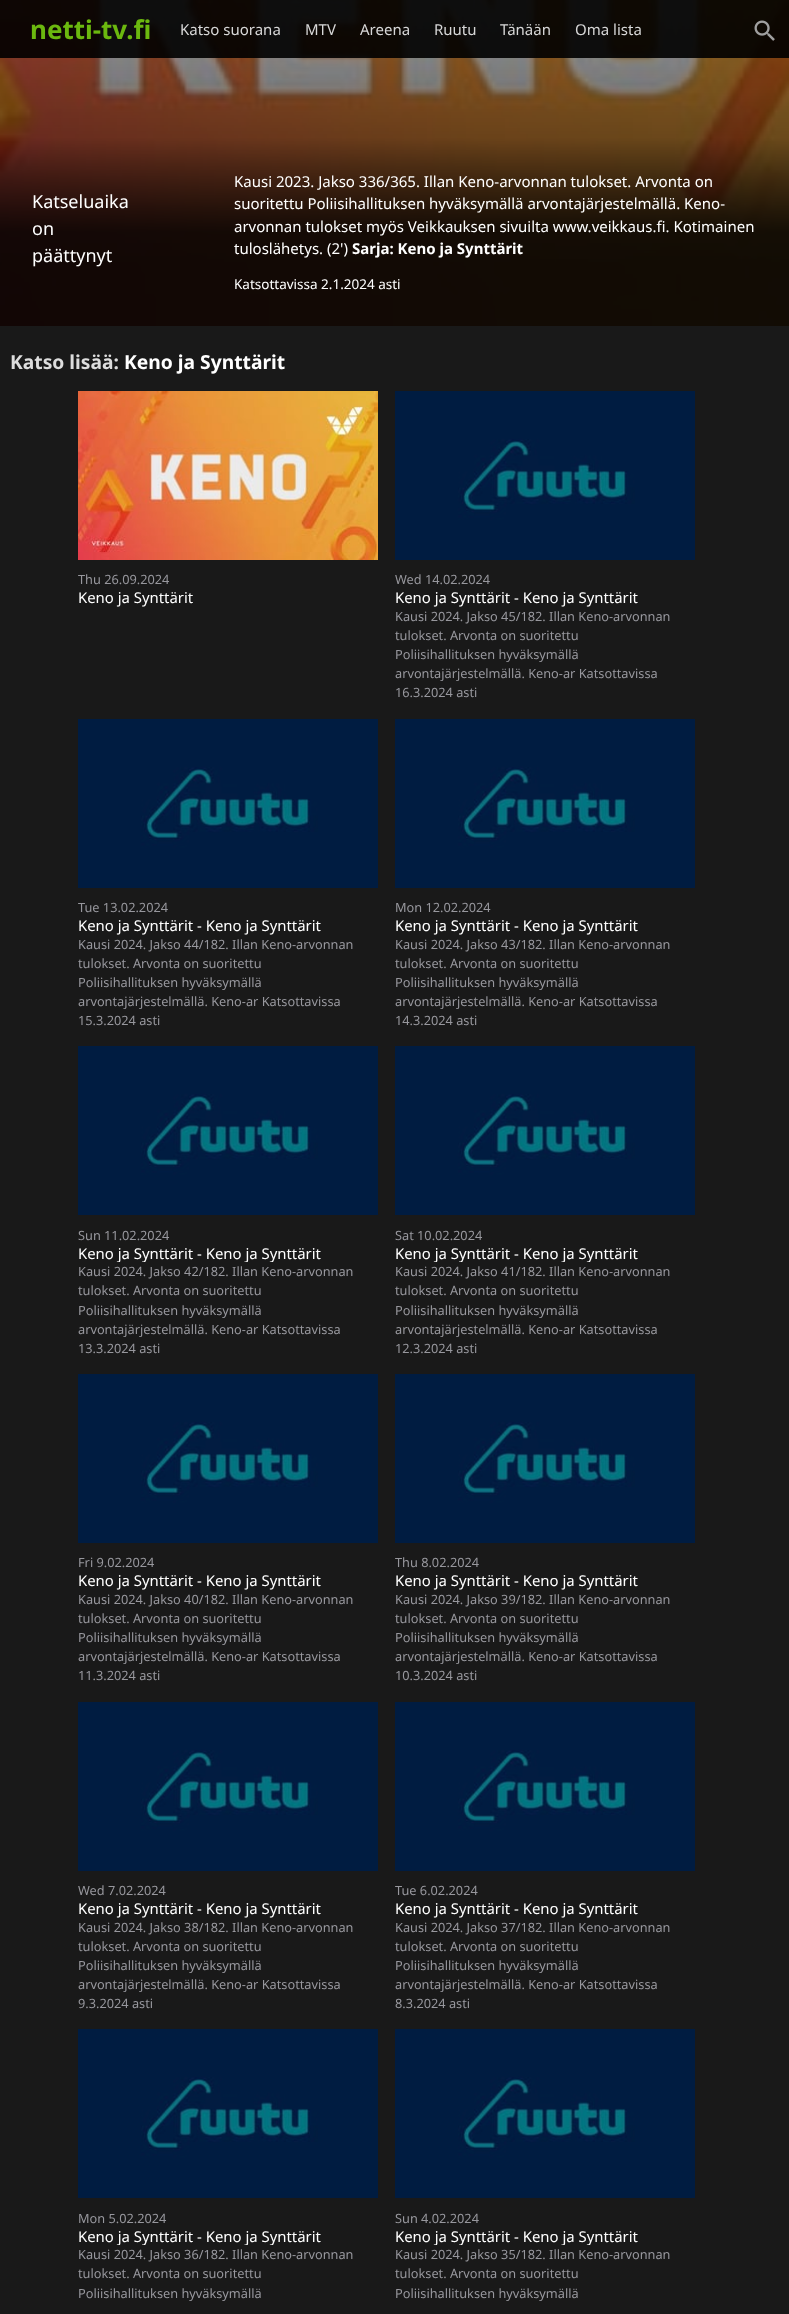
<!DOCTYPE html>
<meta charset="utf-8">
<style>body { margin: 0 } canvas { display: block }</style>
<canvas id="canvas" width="789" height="2314"></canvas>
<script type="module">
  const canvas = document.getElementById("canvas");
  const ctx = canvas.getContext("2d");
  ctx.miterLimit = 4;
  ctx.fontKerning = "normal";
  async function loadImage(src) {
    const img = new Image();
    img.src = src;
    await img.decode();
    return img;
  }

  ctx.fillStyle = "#191919";
  ctx.fillRect(0, 0, 789, 2314);
  ctx.drawImage(await loadImage("img2.png"), 0, 0, 789, 326);
  ctx.fillStyle = "rgba(0, 0, 0, 0.9)";
  ctx.fillRect(0, 0, 789, 58);
  ctx.font = "bold 26px Noto Sans";
  ctx.fillStyle = "#6bb80f";
  ctx.fillText("netti-tv.fi", 30, 39);
  ctx.font = "15px Noto Sans";
  ctx.fillStyle = "#d7d7d7";
  ctx.fillText("Katso suorana", 180, 35);
  ctx.fillText("MTV", 305, 35);
  ctx.fillText("Areena", 360, 35);
  ctx.fillText("Ruutu", 434, 35);
  ctx.fillText("Tänään", 500, 35);
  ctx.fillText("Oma lista", 575, 35);
  ctx.drawImage(await loadImage("img1.png"), 754, 20, 21, 21);
  ctx.font = "18px Noto Sans";
  ctx.fillStyle = "#ffffff";
  ctx.fillText("Katseluaika", 32, 208);
  ctx.fillText("on", 32, 235);
  ctx.fillText("päättynyt", 32, 262);
  ctx.font = "15px Noto Sans";
  ctx.fillText("Kausi 2023. Jakso 336/365. Illan Keno-arvonnan tulokset. Arvonta on", 234, 187);
  ctx.fillText("suoritettu Poliisihallituksen hyväksymällä arvontajärjestelmällä. Keno-", 234, 209);
  ctx.fillText("arvonnan tulokset myös Veikkauksen sivuilta www.veikkaus.fi. Kotimainen", 234, 232);
  ctx.fillText("tuloslähetys. (2')", 234, 254);
  ctx.font = "bold 15px Noto Sans";
  ctx.fillText("Sarja: Keno ja Synttärit", 352, 254);
  ctx.font = "13.5px Noto Sans";
  ctx.fillText("Katsottavissa 2.1.2024 asti", 234, 289);
  ctx.font = "bold 19.25px Noto Sans";
  ctx.fillStyle = "#dddddd";
  ctx.fillText("Katso lisää:", 10, 369);
  ctx.fillStyle = "#ffffff";
  ctx.fillText("Keno ja Synttärit", 124, 369);
  ctx.drawImage(await loadImage("img3.png"), 78, 391, 300, 169);
  ctx.font = "12.75px Noto Sans";
  ctx.fillStyle = "#97979d";
  ctx.fillText("Thu 26.09.2024", 78, 584);
  ctx.font = "14.9px Noto Sans";
  ctx.fillStyle = "#ffffff";
  ctx.fillText("Keno ja Synttärit", 78, 603);
  ctx.drawImage(await loadImage("img4.png"), 395, 391, 300, 169);
  ctx.font = "12.75px Noto Sans";
  ctx.fillStyle = "#97979d";
  ctx.fillText("Wed 14.02.2024", 395, 584);
  ctx.font = "14.9px Noto Sans";
  ctx.fillStyle = "#ffffff";
  ctx.fillText("Keno ja Synttärit - Keno ja Synttärit", 395, 603);
  ctx.font = "12.75px Noto Sans";
  ctx.fillStyle = "#97979d";
  ctx.fillText("Kausi 2024. Jakso 45/182. Illan Keno-arvonnan", 395, 621);
  ctx.fillText("tulokset. Arvonta on suoritettu", 395, 640);
  ctx.fillText("Poliisihallituksen hyväksymällä", 395, 659);
  ctx.fillText("arvontajärjestelmällä. Keno-ar Katsottavissa", 395, 678);
  ctx.fillText("16.3.2024 asti", 395, 697);
  ctx.drawImage(await loadImage("img5.png"), 78, 719, 300, 169);
  ctx.fillText("Tue 13.02.2024", 78, 912);
  ctx.font = "14.9px Noto Sans";
  ctx.fillStyle = "#ffffff";
  ctx.fillText("Keno ja Synttärit - Keno ja Synttärit", 78, 931);
  ctx.font = "12.75px Noto Sans";
  ctx.fillStyle = "#97979d";
  ctx.fillText("Kausi 2024. Jakso 44/182. Illan Keno-arvonnan", 78, 949);
  ctx.fillText("tulokset. Arvonta on suoritettu", 78, 968);
  ctx.fillText("Poliisihallituksen hyväksymällä", 78, 987);
  ctx.fillText("arvontajärjestelmällä. Keno-ar Katsottavissa", 78, 1006);
  ctx.fillText("15.3.2024 asti", 78, 1025);
  ctx.drawImage(await loadImage("img4.png"), 395, 719, 300, 169);
  ctx.fillText("Mon 12.02.2024", 395, 912);
  ctx.font = "14.9px Noto Sans";
  ctx.fillStyle = "#ffffff";
  ctx.fillText("Keno ja Synttärit - Keno ja Synttärit", 395, 931);
  ctx.font = "12.75px Noto Sans";
  ctx.fillStyle = "#97979d";
  ctx.fillText("Kausi 2024. Jakso 43/182. Illan Keno-arvonnan", 395, 949);
  ctx.fillText("tulokset. Arvonta on suoritettu", 395, 968);
  ctx.fillText("Poliisihallituksen hyväksymällä", 395, 987);
  ctx.fillText("arvontajärjestelmällä. Keno-ar Katsottavissa", 395, 1006);
  ctx.fillText("14.3.2024 asti", 395, 1025);
  ctx.drawImage(await loadImage("img5.png"), 78, 1046, 300, 169);
  ctx.fillText("Sun 11.02.2024", 78, 1240);
  ctx.save();
  ctx.beginPath();
  ctx.rect(78, 1244, 278, 18);
  ctx.clip();
  ctx.font = "14.9px Noto Sans";
  ctx.fillStyle = "#ffffff";
  ctx.fillText("Keno ja Synttärit - Keno ja Synttärit", 78, 1259);
  ctx.restore();
  ctx.fillText("Kausi 2024. Jakso 42/182. Illan Keno-arvonnan", 78, 1276);
  ctx.fillText("tulokset. Arvonta on suoritettu", 78, 1295);
  ctx.fillText("Poliisihallituksen hyväksymällä", 78, 1315);
  ctx.fillText("arvontajärjestelmällä. Keno-ar Katsottavissa", 78, 1334);
  ctx.fillText("13.3.2024 asti", 78, 1353);
  ctx.drawImage(await loadImage("img4.png"), 395, 1046, 300, 169);
  ctx.fillText("Sat 10.02.2024", 395, 1240);
  ctx.save();
  ctx.beginPath();
  ctx.rect(395, 1244, 278, 18);
  ctx.clip();
  ctx.font = "14.9px Noto Sans";
  ctx.fillStyle = "#ffffff";
  ctx.fillText("Keno ja Synttärit - Keno ja Synttärit", 395, 1259);
  ctx.restore();
  ctx.fillText("Kausi 2024. Jakso 41/182. Illan Keno-arvonnan", 395, 1276);
  ctx.fillText("tulokset. Arvonta on suoritettu", 395, 1295);
  ctx.fillText("Poliisihallituksen hyväksymällä", 395, 1315);
  ctx.fillText("arvontajärjestelmällä. Keno-ar Katsottavissa", 395, 1334);
  ctx.fillText("12.3.2024 asti", 395, 1353);
  ctx.drawImage(await loadImage("img5.png"), 78, 1374, 300, 169);
  ctx.fillText("Fri 9.02.2024", 78, 1567);
  ctx.font = "14.9px Noto Sans";
  ctx.fillStyle = "#ffffff";
  ctx.fillText("Keno ja Synttärit - Keno ja Synttärit", 78, 1586);
  ctx.font = "12.75px Noto Sans";
  ctx.fillStyle = "#97979d";
  ctx.fillText("Kausi 2024. Jakso 40/182. Illan Keno-arvonnan", 78, 1604);
  ctx.fillText("tulokset. Arvonta on suoritettu", 78, 1623);
  ctx.fillText("Poliisihallituksen hyväksymällä", 78, 1642);
  ctx.fillText("arvontajärjestelmällä. Keno-ar Katsottavissa", 78, 1661);
  ctx.fillText("11.3.2024 asti", 78, 1680);
  ctx.drawImage(await loadImage("img4.png"), 395, 1374, 300, 169);
  ctx.fillText("Thu 8.02.2024", 395, 1567);
  ctx.font = "14.9px Noto Sans";
  ctx.fillStyle = "#ffffff";
  ctx.fillText("Keno ja Synttärit - Keno ja Synttärit", 395, 1586);
  ctx.font = "12.75px Noto Sans";
  ctx.fillStyle = "#97979d";
  ctx.fillText("Kausi 2024. Jakso 39/182. Illan Keno-arvonnan", 395, 1604);
  ctx.fillText("tulokset. Arvonta on suoritettu", 395, 1623);
  ctx.fillText("Poliisihallituksen hyväksymällä", 395, 1642);
  ctx.fillText("arvontajärjestelmällä. Keno-ar Katsottavissa", 395, 1661);
  ctx.fillText("10.3.2024 asti", 395, 1680);
  ctx.drawImage(await loadImage("img5.png"), 78, 1702, 300, 169);
  ctx.fillText("Wed 7.02.2024", 78, 1895);
  ctx.font = "14.9px Noto Sans";
  ctx.fillStyle = "#ffffff";
  ctx.fillText("Keno ja Synttärit - Keno ja Synttärit", 78, 1914);
  ctx.font = "12.75px Noto Sans";
  ctx.fillStyle = "#97979d";
  ctx.fillText("Kausi 2024. Jakso 38/182. Illan Keno-arvonnan", 78, 1932);
  ctx.fillText("tulokset. Arvonta on suoritettu", 78, 1951);
  ctx.fillText("Poliisihallituksen hyväksymällä", 78, 1970);
  ctx.fillText("arvontajärjestelmällä. Keno-ar Katsottavissa", 78, 1989);
  ctx.fillText("9.3.2024 asti", 78, 2008);
  ctx.drawImage(await loadImage("img4.png"), 395, 1702, 300, 169);
  ctx.fillText("Tue 6.02.2024", 395, 1895);
  ctx.font = "14.9px Noto Sans";
  ctx.fillStyle = "#ffffff";
  ctx.fillText("Keno ja Synttärit - Keno ja Synttärit", 395, 1914);
  ctx.font = "12.75px Noto Sans";
  ctx.fillStyle = "#97979d";
  ctx.fillText("Kausi 2024. Jakso 37/182. Illan Keno-arvonnan", 395, 1932);
  ctx.fillText("tulokset. Arvonta on suoritettu", 395, 1951);
  ctx.fillText("Poliisihallituksen hyväksymällä", 395, 1970);
  ctx.fillText("arvontajärjestelmällä. Keno-ar Katsottavissa", 395, 1989);
  ctx.fillText("8.3.2024 asti", 395, 2008);
  ctx.drawImage(await loadImage("img5.png"), 78, 2029, 300, 169);
  ctx.fillText("Mon 5.02.2024", 78, 2223);
  ctx.save();
  ctx.beginPath();
  ctx.rect(78, 2227, 278, 18);
  ctx.clip();
  ctx.font = "14.9px Noto Sans";
  ctx.fillStyle = "#ffffff";
  ctx.fillText("Keno ja Synttärit - Keno ja Synttärit", 78, 2242);
  ctx.restore();
  ctx.fillText("Kausi 2024. Jakso 36/182. Illan Keno-arvonnan", 78, 2259);
  ctx.fillText("tulokset. Arvonta on suoritettu", 78, 2278);
  ctx.fillText("Poliisihallituksen hyväksymällä", 78, 2298);
  ctx.drawImage(await loadImage("img4.png"), 395, 2029, 300, 169);
  ctx.fillText("Sun 4.02.2024", 395, 2223);
  ctx.save();
  ctx.beginPath();
  ctx.rect(395, 2227, 278, 18);
  ctx.clip();
  ctx.font = "14.9px Noto Sans";
  ctx.fillStyle = "#ffffff";
  ctx.fillText("Keno ja Synttärit - Keno ja Synttärit", 395, 2242);
  ctx.restore();
  ctx.fillText("Kausi 2024. Jakso 35/182. Illan Keno-arvonnan", 395, 2259);
  ctx.fillText("tulokset. Arvonta on suoritettu", 395, 2278);
  ctx.fillText("Poliisihallituksen hyväksymällä", 395, 2298);
</script>
